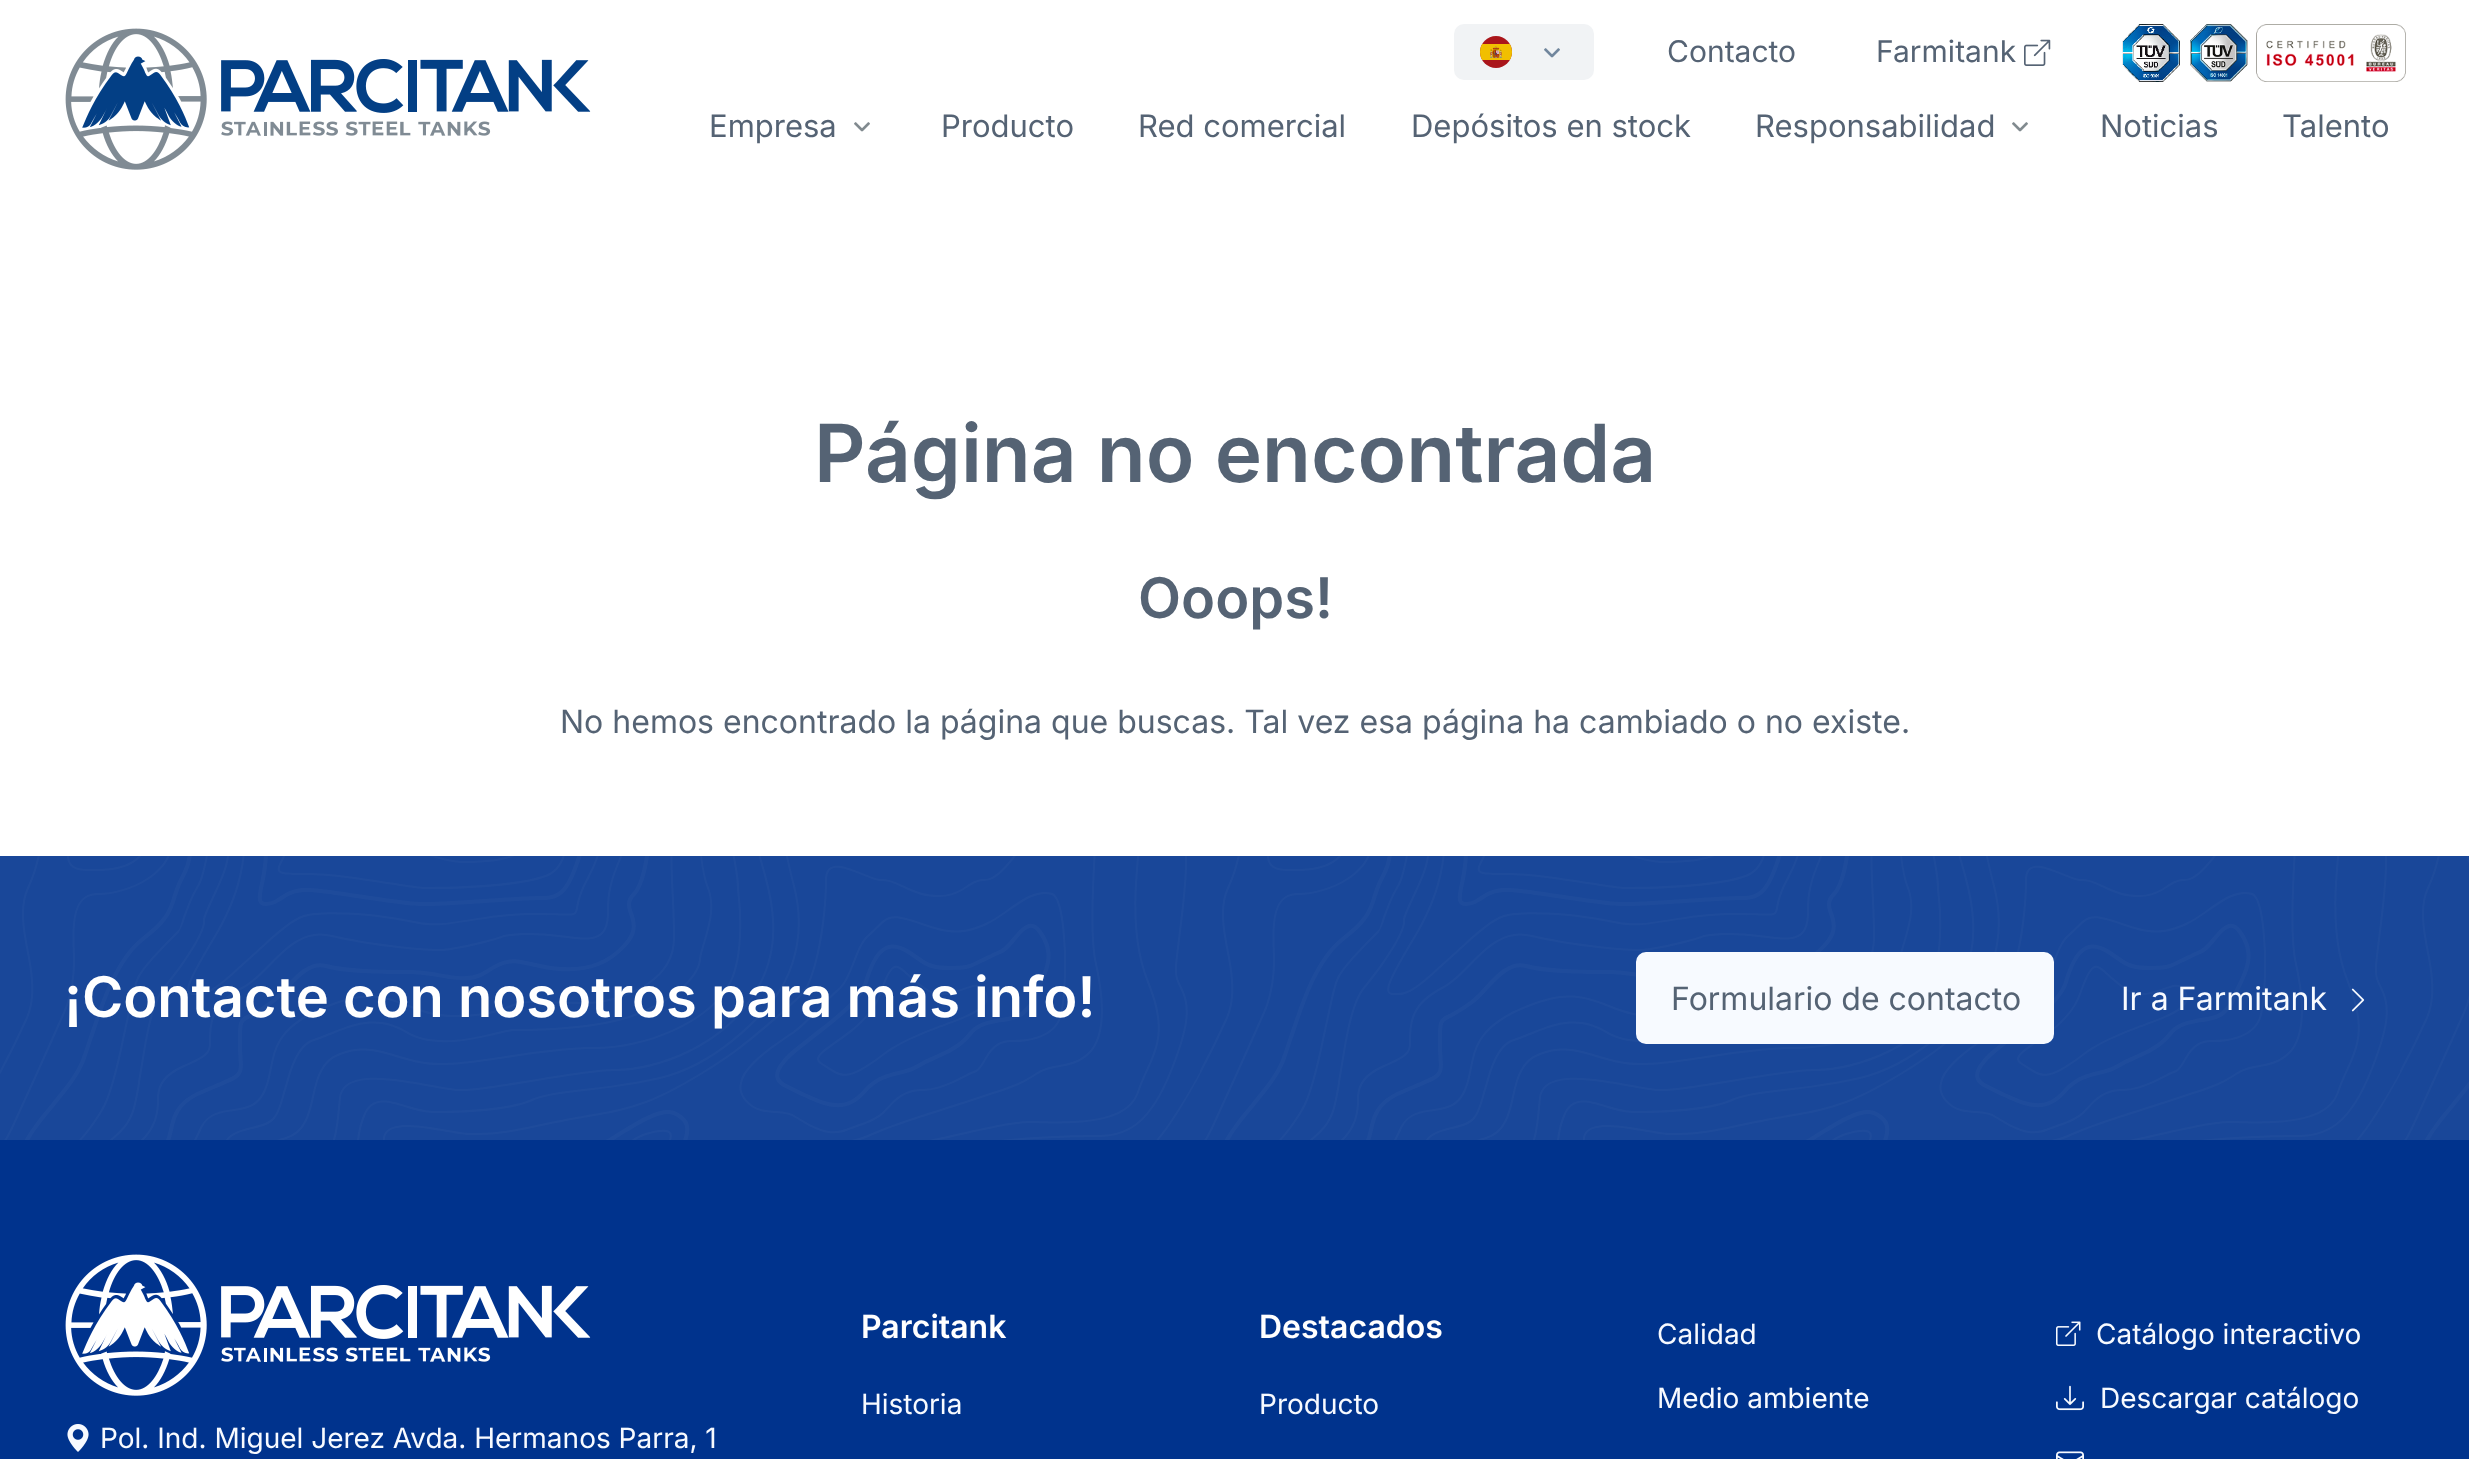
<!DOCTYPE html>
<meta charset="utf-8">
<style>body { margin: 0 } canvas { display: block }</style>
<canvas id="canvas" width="2469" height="1459"></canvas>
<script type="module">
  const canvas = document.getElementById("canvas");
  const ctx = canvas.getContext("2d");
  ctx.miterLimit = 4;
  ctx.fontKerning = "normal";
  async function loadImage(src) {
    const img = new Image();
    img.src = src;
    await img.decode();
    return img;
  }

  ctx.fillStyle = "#ffffff";
  ctx.fillRect(0, 0, 2469, 1459);
  ctx.fillStyle = "#f1f3f5";
  ctx.beginPath();
  ctx.roundRect(1454, 24, 140, 56, 10);
  ctx.fill();
  ctx.drawImage(await loadImage("img1.png"), 1480, 36, 32, 32);
  ctx.drawImage(await loadImage("img2.png"), 1544, 48, 16, 10);
  ctx.font = "30px Inter";
  ctx.fillStyle = "#556374";
  ctx.fillText("Contacto", 1667, 62);
  ctx.fillText("Farmitank", 1876, 62);
  ctx.drawImage(await loadImage("img3.png"), 2024, 39, 27, 27);
  ctx.drawImage(await loadImage("img4.png"), 2122, 24, 58, 58);
  ctx.drawImage(await loadImage("img5.png"), 2190, 24, 58, 58);
  ctx.drawImage(await loadImage("img6.png"), 2256, 24, 150, 58);
  ctx.drawImage(await loadImage("img7.png"), 65, 28, 526, 142);
  ctx.font = "31px Inter";
  ctx.fillText("Empresa", 709, 137);
  ctx.drawImage(await loadImage("img8.png"), 854, 122, 16, 10);
  ctx.fillText("Producto", 941, 137);
  ctx.fillText("Red comercial", 1138, 137);
  ctx.fillText("Depósitos en stock", 1411, 137);
  ctx.fillText("Responsabilidad", 1755, 137);
  ctx.drawImage(await loadImage("img8.png"), 2012, 122, 16, 10);
  ctx.fillText("Noticias", 2100, 137);
  ctx.fillText("Talento", 2282, 137);
  ctx.font = "600 80px Inter";
  ctx.fillText("Página no encontrada", 814, 482);
  ctx.font = "600 56px Inter";
  ctx.fillText("Ooops!", 1138, 618);
  ctx.font = "32px Inter";
  ctx.fillText("No hemos encontrado la página que buscas. Tal vez esa página ha cambiado o no existe.", 560, 733);
  ctx.fillStyle = "#194799";
  ctx.fillRect(0, 856, 2469, 284);
  ctx.drawImage(await loadImage("img9.png"), 0, 856, 2469, 284);
  ctx.font = "600 56px Inter";
  ctx.fillStyle = "#ffffff";
  ctx.fillText("¡Contacte con nosotros para más info!", 64, 1017);
  ctx.fillStyle = "#f7faff";
  ctx.beginPath();
  ctx.roundRect(1637, 953, 416, 90, 9);
  ctx.fill();
  ctx.strokeStyle = "#f7faff";
  ctx.lineWidth = 2;
  ctx.stroke();
  ctx.font = "32px Inter";
  ctx.fillStyle = "#556374";
  ctx.fillText("Formulario de contacto", 1671, 1010);
  ctx.fillStyle = "#f7faff";
  ctx.fillText("Ir a Farmitank", 2121, 1010);
  ctx.drawImage(await loadImage("img10.png"), 2351, 988, 14, 24);
  ctx.fillStyle = "#00338d";
  ctx.fillRect(0, 1140, 2469, 319);
  ctx.font = "600 32px Inter";
  ctx.fillStyle = "#ffffff";
  ctx.fillText("Parcitank", 861, 1338);
  ctx.font = "28px Inter";
  ctx.fillStyle = "#f7faff";
  ctx.fillText("Historia", 861, 1414);
  ctx.font = "600 32px Inter";
  ctx.fillStyle = "#ffffff";
  ctx.fillText("Destacados", 1259, 1338);
  ctx.font = "28px Inter";
  ctx.fillStyle = "#f7faff";
  ctx.fillText("Producto", 1259, 1414);
  ctx.fillText("Calidad", 1657, 1344);
  ctx.fillText("Medio ambiente", 1657, 1408);
  ctx.drawImage(await loadImage("img11.png"), 2056, 1321, 25, 25);
  ctx.fillText("Catálogo interactivo", 2096, 1344);
  ctx.drawImage(await loadImage("img12.png"), 2056, 1385, 28, 26);
  ctx.fillText("Descargar catálogo", 2100, 1408);
  ctx.drawImage(await loadImage("img13.png"), 2056, 1451, 28, 8);
  ctx.drawImage(await loadImage("img14.png"), 65, 1254, 526, 142);
  ctx.drawImage(await loadImage("img15.png"), 67, 1424, 22, 28);
  ctx.fillText("Pol. Ind. Miguel Jerez Avda. Hermanos Parra, 1", 100, 1448);
</script>
